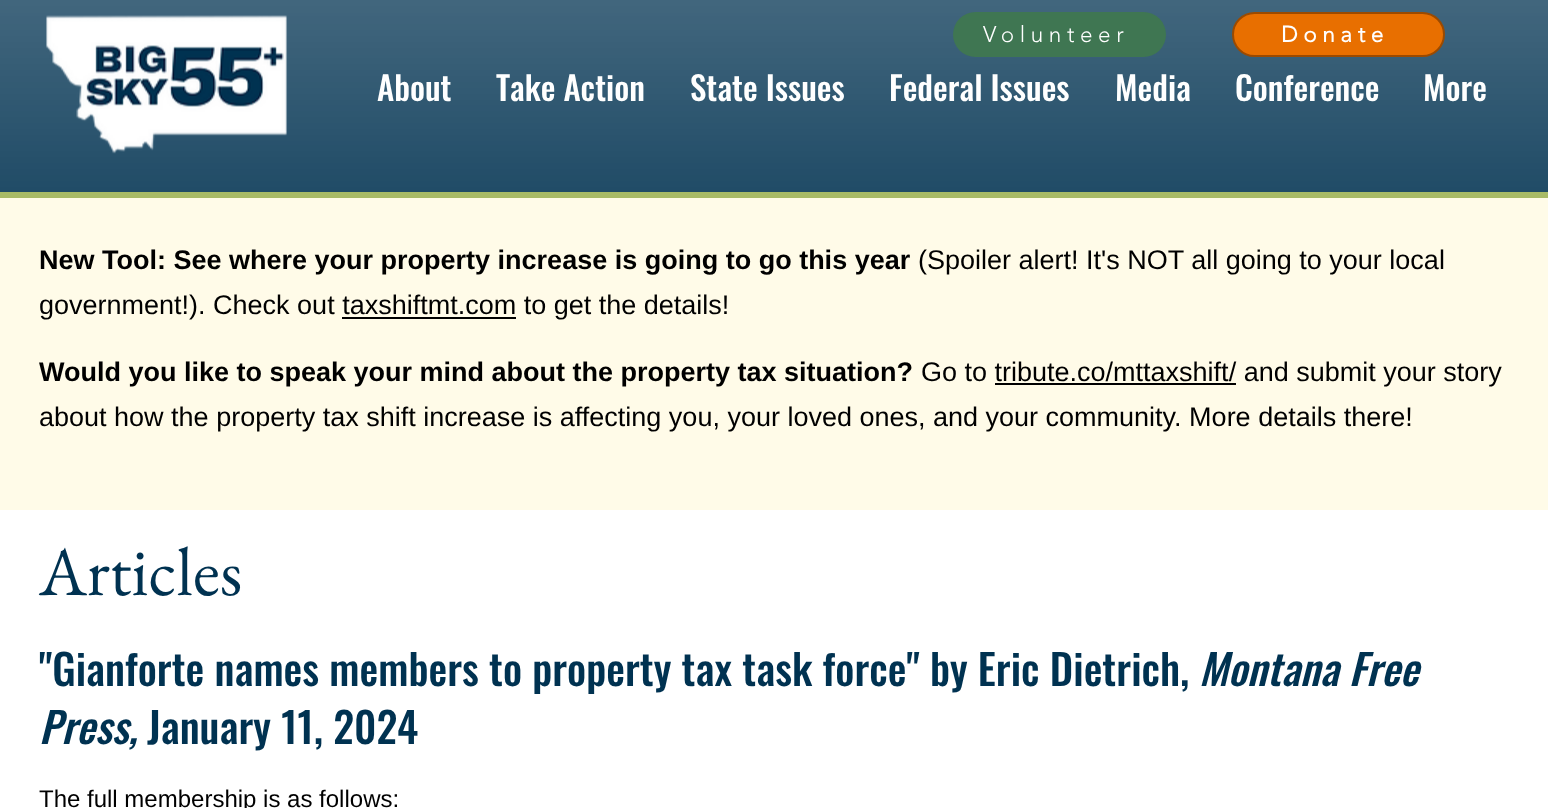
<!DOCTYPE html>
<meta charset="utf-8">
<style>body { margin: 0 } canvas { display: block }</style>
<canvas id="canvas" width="1548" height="808"></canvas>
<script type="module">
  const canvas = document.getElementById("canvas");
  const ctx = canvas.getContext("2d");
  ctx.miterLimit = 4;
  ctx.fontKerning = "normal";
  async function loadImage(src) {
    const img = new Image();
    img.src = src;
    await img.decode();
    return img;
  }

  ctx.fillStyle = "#ffffff";
  ctx.fillRect(0, 0, 1548, 808);
  ctx.fillStyle = "#003251";
  ctx.fillRect(0, 0, 1548, 192);
  ctx.drawImage(await loadImage("img1.png"), 0, 0, 1548, 192);
  ctx.fillStyle = "#a8ba66";
  ctx.fillRect(0, 192, 1548, 6);
  ctx.drawImage(await loadImage("img2.png"), 46, 15, 241, 139);
  ctx.fillStyle = "#3f7652";
  ctx.beginPath();
  ctx.roundRect(953, 12, 213, 45, 22.5);
  ctx.fill();
  ctx.letterSpacing = "5.6px";
  ctx.font = "300 22.5px 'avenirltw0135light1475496'";
  ctx.fillStyle = "#ffffff";
  ctx.fillText("Volunteer", 983, 42);
  ctx.fillStyle = "#e86f00";
  ctx.beginPath();
  ctx.roundRect(1233, 13, 211, 43, 21.5);
  ctx.fill();
  ctx.strokeStyle = "#9b4a00";
  ctx.lineWidth = 2;
  ctx.stroke();
  ctx.font = "bold 22.5px 'avenirltw0135light1475496'";
  ctx.fillStyle = "#ffffff";
  ctx.fillText("Donate", 1281, 42);
  ctx.letterSpacing = "0px";
  ctx.font = "500 33px Oswald";
  ctx.fillText("About", 377, 101);
  ctx.fillText("Take Action", 496, 101);
  ctx.fillText("State Issues", 690, 101);
  ctx.fillText("Federal Issues", 889, 101);
  ctx.fillText("Media", 1115, 101);
  ctx.fillText("Conference", 1235, 101);
  ctx.fillText("More", 1423, 101);
  ctx.fillStyle = "#fffbe8";
  ctx.fillRect(0, 198, 1548, 312);
  ctx.font = "bold 27px Liberation Sans";
  ctx.fillStyle = "#000000";
  ctx.fillText("New Tool: See where your property increase is going to go this year", 39, 269);
  ctx.font = "27px Liberation Sans";
  ctx.fillText("(Spoiler alert! It's NOT all going to your local", 918, 269);
  ctx.fillText("government!). Check out taxshiftmt.com to get the details!", 39, 314);
  ctx.fillRect(342, 317, 174, 2);
  ctx.font = "bold 27px Liberation Sans";
  ctx.fillText("Would you like to speak your mind about the property tax situation?", 39, 381);
  ctx.font = "27px Liberation Sans";
  ctx.fillText("Go to tribute.co/mttaxshift/ and submit your story", 921, 381);
  ctx.fillRect(995, 383, 241, 2);
  ctx.fillText("about how the property tax shift increase is affecting you, your loved ones, and your community. More details there!", 39, 426);
  ctx.font = "69px EB Garamond";
  ctx.fillStyle = "#003251";
  ctx.fillText("Articles", 39, 595);
  ctx.font = "500 42px Oswald";
  ctx.fillText("\"Gianforte names members to property tax task force\" by Eric Dietrich,", 39, 686);
  ctx.font = "italic 500 42px Oswald";
  ctx.fillText("Montana Free", 1199, 686);
  ctx.fillText("Press,", 39, 744);
  ctx.font = "500 42px Oswald";
  ctx.fillText("January 11, 2024", 147, 744);
  ctx.font = "24px Liberation Sans";
  ctx.fillStyle = "#000000";
  ctx.fillText("The full membership is as follows:", 39, 807);
</script>
